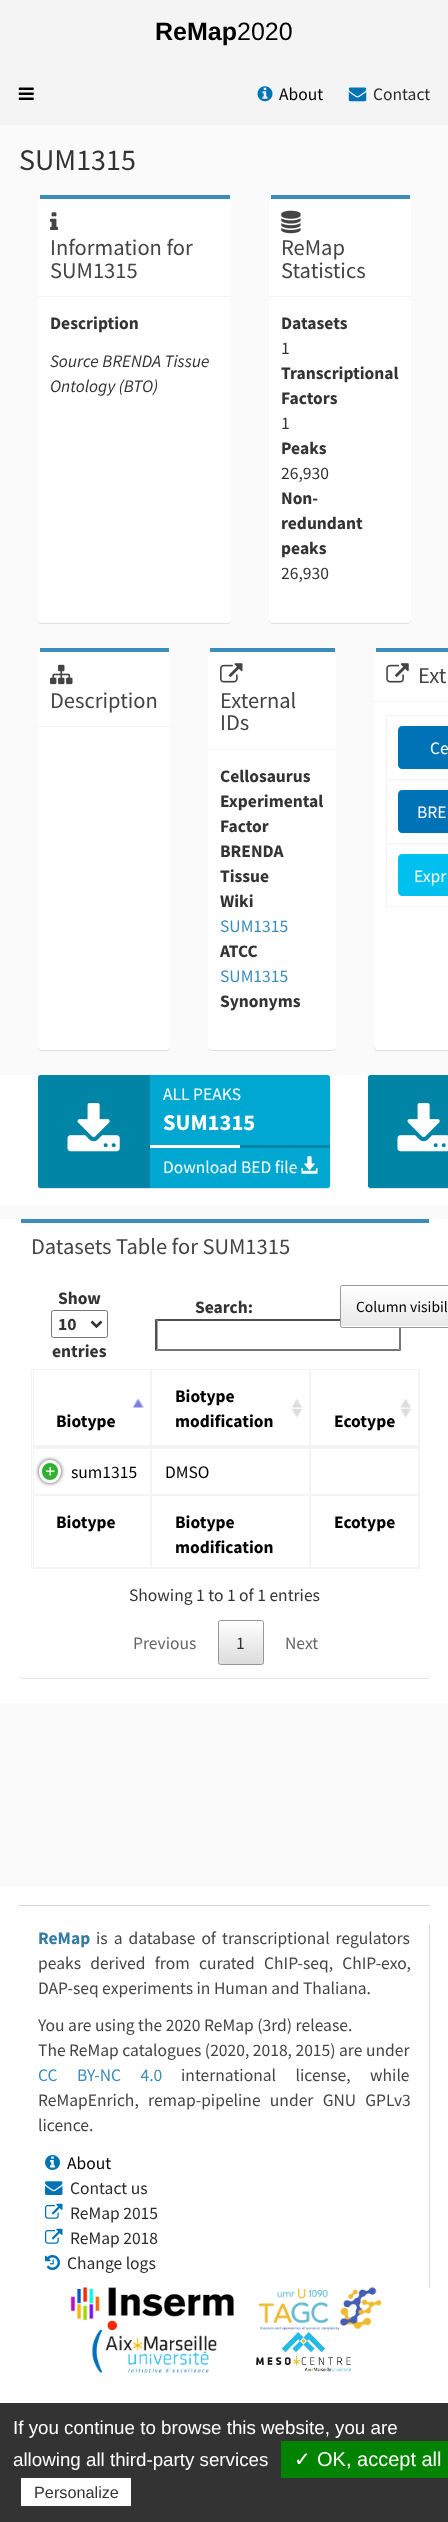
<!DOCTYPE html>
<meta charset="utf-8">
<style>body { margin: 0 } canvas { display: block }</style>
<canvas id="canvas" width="448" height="2522"></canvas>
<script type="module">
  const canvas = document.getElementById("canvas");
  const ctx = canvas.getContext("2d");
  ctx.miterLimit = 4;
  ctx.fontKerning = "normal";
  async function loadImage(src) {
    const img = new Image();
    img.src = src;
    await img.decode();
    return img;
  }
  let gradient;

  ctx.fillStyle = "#fafafa";
  ctx.fillRect(0, 0, 448, 2522);
  ctx.fillStyle = "#f4f4f4";
  ctx.fillRect(0, 0, 448, 125);
  ctx.font = "bold 25px Liberation Sans";
  ctx.fillStyle = "#000000";
  ctx.fillText("ReMap", 155, 40);
  ctx.font = "25px Liberation Sans";
  ctx.fillText("2020", 237, 40);
  ctx.drawImage(await loadImage("img1.png"), 18, 87, 16, 13);
  ctx.drawImage(await loadImage("img2.png"), 257, 86, 16, 16);
  ctx.font = "17.5px Source Sans Pro";
  ctx.fillText("About", 279, 100);
  ctx.drawImage(await loadImage("img3.png"), 348, 87, 19, 15);
  ctx.fillStyle = "#2c2c2c";
  ctx.fillText("Contact", 373, 100);
  ctx.font = "30px Source Sans Pro";
  ctx.fillStyle = "#333333";
  ctx.fillText("SUM1315", 19, 170);
  ctx.fillStyle = "rgba(0, 0, 0, 0.1)";
  ctx.filter = "blur(0.5px)";
  ctx.beginPath();
  ctx.roundRect(38, 196, 193, 428, 4);
  ctx.fill();
  ctx.filter = "none";
  ctx.fillStyle = "#ffffff";
  ctx.beginPath();
  ctx.roundRect(38, 195, 193, 428, 4);
  ctx.fill();
  ctx.fillStyle = "#3c8dbc";
  ctx.fillRect(40, 195, 190, 4);
  ctx.fillStyle = "#f4f4f4";
  ctx.fillRect(38, 296, 193, 1);
  ctx.drawImage(await loadImage("img4.png"), 50, 212, 9, 18);
  ctx.font = "22.5px Source Sans Pro";
  ctx.fillStyle = "#444444";
  ctx.fillText("Information for", 50, 255);
  ctx.fillText("SUM1315", 50, 278);
  ctx.font = "bold 17.5px Source Sans Pro";
  ctx.fillStyle = "#333333";
  ctx.fillText("Description", 50, 329);
  ctx.font = "italic 17.5px Source Sans Pro";
  ctx.fillText("Source BRENDA Tissue", 50, 367);
  ctx.fillText("Ontology (BTO)", 50, 392);
  ctx.fillStyle = "rgba(0, 0, 0, 0.1)";
  ctx.filter = "blur(0.5px)";
  ctx.beginPath();
  ctx.roundRect(269, 196, 142, 428, 4);
  ctx.fill();
  ctx.filter = "none";
  ctx.fillStyle = "#ffffff";
  ctx.beginPath();
  ctx.roundRect(269, 195, 142, 428, 4);
  ctx.fill();
  ctx.fillStyle = "#3c8dbc";
  ctx.fillRect(271, 195, 139, 4);
  ctx.fillStyle = "#f4f4f4";
  ctx.fillRect(269, 296, 142, 1);
  ctx.drawImage(await loadImage("img5.png"), 281, 210, 20, 24);
  ctx.font = "22.5px Source Sans Pro";
  ctx.fillStyle = "#444444";
  ctx.fillText("ReMap", 281, 255);
  ctx.fillText("Statistics", 281, 278);
  ctx.font = "bold 17.5px Source Sans Pro";
  ctx.fillStyle = "#333333";
  ctx.fillText("Datasets", 281, 329);
  ctx.font = "17.5px Source Sans Pro";
  ctx.fillText("1", 281, 354);
  ctx.font = "bold 17.5px Source Sans Pro";
  ctx.fillText("Transcriptional", 281, 379);
  ctx.fillText("Factors", 281, 404);
  ctx.font = "17.5px Source Sans Pro";
  ctx.fillText("1", 281, 429);
  ctx.font = "bold 17.5px Source Sans Pro";
  ctx.fillText("Peaks", 281, 454);
  ctx.font = "17.5px Source Sans Pro";
  ctx.fillText("26,930", 281, 479);
  ctx.font = "bold 17.5px Source Sans Pro";
  ctx.fillText("Non-", 281, 504);
  ctx.fillText("redundant", 281, 529);
  ctx.fillText("peaks", 281, 554);
  ctx.font = "17.5px Source Sans Pro";
  ctx.fillText("26,930", 281, 579);
  ctx.fillStyle = "rgba(0, 0, 0, 0.1)";
  ctx.filter = "blur(0.5px)";
  ctx.beginPath();
  ctx.roundRect(38, 649, 132, 402, 4);
  ctx.fill();
  ctx.filter = "none";
  ctx.fillStyle = "#ffffff";
  ctx.beginPath();
  ctx.roundRect(38, 648, 132, 402, 4);
  ctx.fill();
  ctx.fillStyle = "#3c8dbc";
  ctx.fillRect(40, 648, 129, 4);
  ctx.fillStyle = "#f4f4f4";
  ctx.fillRect(38, 726, 132, 1);
  ctx.drawImage(await loadImage("img6.png"), 50, 664, 23, 21);
  ctx.font = "22.5px Source Sans Pro";
  ctx.fillStyle = "#444444";
  ctx.fillText("Description", 50, 708);
  ctx.fillStyle = "rgba(0, 0, 0, 0.1)";
  ctx.filter = "blur(0.5px)";
  ctx.beginPath();
  ctx.roundRect(208, 649, 128, 402, 4);
  ctx.fill();
  ctx.filter = "none";
  ctx.fillStyle = "#ffffff";
  ctx.beginPath();
  ctx.roundRect(208, 648, 128, 402, 4);
  ctx.fill();
  ctx.fillStyle = "#3c8dbc";
  ctx.fillRect(210, 648, 125, 4);
  ctx.fillStyle = "#f4f4f4";
  ctx.fillRect(208, 749, 128, 1);
  ctx.drawImage(await loadImage("img7.png"), 220, 663, 23, 20);
  ctx.fillStyle = "#444444";
  ctx.fillText("External", 220, 708);
  ctx.fillText("IDs", 220, 730);
  ctx.font = "bold 17.5px Source Sans Pro";
  ctx.fillStyle = "#333333";
  ctx.fillText("Cellosaurus", 220, 782);
  ctx.fillText("Experimental", 220, 807);
  ctx.fillText("Factor", 220, 832);
  ctx.fillText("BRENDA", 220, 857);
  ctx.fillText("Tissue", 220, 882);
  ctx.fillText("Wiki", 220, 907);
  ctx.font = "17.5px Source Sans Pro";
  ctx.fillStyle = "#3c8dbc";
  ctx.fillText("SUM1315", 220, 932);
  ctx.font = "bold 17.5px Source Sans Pro";
  ctx.fillStyle = "#333333";
  ctx.fillText("ATCC", 220, 957);
  ctx.font = "17.5px Source Sans Pro";
  ctx.fillStyle = "#3c8dbc";
  ctx.fillText("SUM1315", 220, 982);
  ctx.font = "bold 17.5px Source Sans Pro";
  ctx.fillStyle = "#333333";
  ctx.fillText("Synonyms", 220, 1007);
  ctx.fillStyle = "rgba(0, 0, 0, 0.1)";
  ctx.filter = "blur(0.5px)";
  ctx.beginPath();
  ctx.roundRect(374, 649, 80, 402, 4);
  ctx.fill();
  ctx.filter = "none";
  ctx.fillStyle = "#ffffff";
  ctx.beginPath();
  ctx.moveTo(378, 648);
  ctx.lineTo(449, 648);
  ctx.lineTo(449, 1050);
  ctx.lineTo(378, 1050);
  ctx.bezierCurveTo(376, 1050, 374, 1048, 374, 1046);
  ctx.lineTo(374, 652);
  ctx.bezierCurveTo(374, 650, 376, 648, 378, 648);
  ctx.closePath();
  ctx.fill();
  ctx.fillStyle = "#3c8dbc";
  ctx.fillRect(376, 648, 72, 4);
  ctx.fillStyle = "#f4f4f4";
  ctx.fillRect(374, 701, 74, 1);
  ctx.drawImage(await loadImage("img8.png"), 386, 663, 23, 20);
  ctx.font = "22.5px Source Sans Pro";
  ctx.fillStyle = "#444444";
  ctx.fillText("Ext", 418, 683);
  ctx.fillStyle = "#f4f4f4";
  ctx.fillRect(386, 715, 62, 1);
  ctx.fillRect(386, 906, 62, 1);
  ctx.fillRect(386, 715, 1, 193);
  ctx.fillStyle = "#0073b7";
  ctx.beginPath();
  ctx.moveTo(402, 726);
  ctx.lineTo(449, 726);
  ctx.lineTo(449, 769);
  ctx.lineTo(402, 769);
  ctx.bezierCurveTo(400, 769, 398, 767, 398, 765);
  ctx.lineTo(398, 730);
  ctx.bezierCurveTo(398, 728, 400, 726, 402, 726);
  ctx.closePath();
  ctx.fill();
  ctx.font = "17.5px Source Sans Pro";
  ctx.fillStyle = "#ffffff";
  ctx.fillText("Ce", 430, 754);
  ctx.fillStyle = "#f4f4f4";
  ctx.fillRect(386, 779, 62, 1);
  ctx.fillStyle = "#0073b7";
  ctx.beginPath();
  ctx.moveTo(402, 790);
  ctx.lineTo(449, 790);
  ctx.lineTo(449, 833);
  ctx.lineTo(402, 833);
  ctx.bezierCurveTo(400, 833, 398, 831, 398, 829);
  ctx.lineTo(398, 794);
  ctx.bezierCurveTo(398, 792, 400, 790, 402, 790);
  ctx.closePath();
  ctx.fill();
  ctx.fillStyle = "#ffffff";
  ctx.fillText("BRE", 417, 818);
  ctx.fillStyle = "#f4f4f4";
  ctx.fillRect(386, 843, 62, 1);
  ctx.fillStyle = "#00c0ef";
  ctx.beginPath();
  ctx.moveTo(402, 854);
  ctx.lineTo(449, 854);
  ctx.lineTo(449, 896);
  ctx.lineTo(402, 896);
  ctx.bezierCurveTo(400, 896, 398, 894, 398, 892);
  ctx.lineTo(398, 858);
  ctx.bezierCurveTo(398, 856, 400, 854, 402, 854);
  ctx.closePath();
  ctx.fill();
  ctx.fillStyle = "#ffffff";
  ctx.fillText("Expr", 414, 882);
  ctx.fillRect(0, 1075, 448, 131);
  ctx.fillStyle = "rgba(0, 0, 0, 0.1)";
  ctx.filter = "blur(0.5px)";
  ctx.beginPath();
  ctx.roundRect(38, 1076, 292, 113, 2.5);
  ctx.fill();
  ctx.filter = "none";
  ctx.fillStyle = "#00a7d0";
  ctx.beginPath();
  ctx.roundRect(38, 1075, 292, 113, 2.5);
  ctx.fill();
  ctx.fillStyle = "rgba(0, 0, 0, 0.2)";
  ctx.beginPath();
  ctx.roundRect(38, 1075, 112, 113, [2.5, 0, 0, 2.5]);
  ctx.fill();
  ctx.drawImage(await loadImage("img9.png"), 67, 1103, 53, 49);
  ctx.fillStyle = "#ffffff";
  ctx.fillText("ALL PEAKS", 163, 1100);
  ctx.font = "bold 22.5px Source Sans Pro";
  ctx.fillText("SUM1315", 163, 1130);
  ctx.fillStyle = "#0086a6";
  ctx.fillRect(240, 1145, 90, 3);
  ctx.fillStyle = "#ffffff";
  ctx.fillRect(150, 1145, 90, 3);
  ctx.font = "17.5px Source Sans Pro";
  ctx.fillText("Download BED file", 163, 1173);
  ctx.drawImage(await loadImage("img10.png"), 301, 1156, 17, 18);
  ctx.fillStyle = "rgba(0, 0, 0, 0.1)";
  ctx.filter = "blur(0.5px)";
  ctx.beginPath();
  ctx.roundRect(368, 1076, 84, 113, 2.5);
  ctx.fill();
  ctx.filter = "none";
  ctx.fillStyle = "#00a7d0";
  ctx.beginPath();
  ctx.moveTo(370.5, 1075);
  ctx.lineTo(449, 1075);
  ctx.lineTo(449, 1188);
  ctx.lineTo(370.5, 1188);
  ctx.bezierCurveTo(369, 1188, 368, 1187, 368, 1185.5);
  ctx.lineTo(368, 1077.5);
  ctx.bezierCurveTo(368, 1076, 369, 1075, 370.5, 1075);
  ctx.closePath();
  ctx.fill();
  ctx.fillStyle = "rgba(0, 0, 0, 0.2)";
  ctx.beginPath();
  ctx.moveTo(370.5, 1075);
  ctx.lineTo(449, 1075);
  ctx.lineTo(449, 1188);
  ctx.lineTo(370.5, 1188);
  ctx.bezierCurveTo(369, 1188, 368, 1187, 368, 1185.5);
  ctx.lineTo(368, 1077.5);
  ctx.bezierCurveTo(368, 1076, 369, 1075, 370.5, 1075);
  ctx.closePath();
  ctx.fill();
  ctx.drawImage(await loadImage("img11.png"), 397, 1103, 51, 49);
  ctx.fillStyle = "#ffffff";
  ctx.fillRect(0, 1219, 448, 484);
  ctx.fillStyle = "rgba(0, 0, 0, 0.1)";
  ctx.filter = "blur(0.5px)";
  ctx.beginPath();
  ctx.roundRect(19, 1220, 411, 459, 4);
  ctx.fill();
  ctx.filter = "none";
  ctx.fillStyle = "#ffffff";
  ctx.beginPath();
  ctx.roundRect(19, 1219, 411, 459, 4);
  ctx.fill();
  ctx.fillStyle = "#3c8dbc";
  ctx.fillRect(21, 1219, 408, 4);
  ctx.font = "22.5px Source Sans Pro";
  ctx.fillStyle = "#444444";
  ctx.fillText("Datasets Table for SUM1315", 31, 1254);
  ctx.font = "bold 17.5px Source Sans Pro";
  ctx.fillStyle = "#333333";
  ctx.fillText("Show", 58, 1304);
  ctx.beginPath();
  ctx.roundRect(51.5, 1310.5, 56, 27, 2);
  ctx.strokeStyle = "#767676";
  ctx.stroke();
  ctx.beginPath();
  ctx.moveTo(91.5, 1321.5);
  ctx.lineTo(96.5, 1326.5);
  ctx.lineTo(101.5, 1321.5);
  ctx.strokeStyle = "#333333";
  ctx.lineWidth = 2.5;
  ctx.stroke();
  ctx.fillText("10", 58, 1330);
  ctx.fillText("entries", 52, 1357);
  ctx.fillText("Search:", 195, 1313);
  ctx.fillStyle = "#4f4f4f";
  ctx.beginPath();
  ctx.moveTo(155, 1319);
  ctx.lineTo(401, 1319);
  ctx.lineTo(399, 1321);
  ctx.lineTo(158, 1321);
  ctx.closePath();
  ctx.fill();
  ctx.fillStyle = "#767676";
  ctx.beginPath();
  ctx.moveTo(401, 1319);
  ctx.lineTo(401, 1351);
  ctx.lineTo(399, 1349);
  ctx.lineTo(399, 1321);
  ctx.closePath();
  ctx.fill();
  ctx.beginPath();
  ctx.moveTo(401, 1351);
  ctx.lineTo(155, 1351);
  ctx.lineTo(158, 1349);
  ctx.lineTo(399, 1349);
  ctx.closePath();
  ctx.fill();
  ctx.fillStyle = "#4f4f4f";
  ctx.beginPath();
  ctx.moveTo(155, 1351);
  ctx.lineTo(155, 1319);
  ctx.lineTo(157.5, 1321);
  ctx.lineTo(157.5, 1349);
  ctx.closePath();
  ctx.fill();
  gradient = ctx.createLinearGradient(410, 1286, 410, 1326);
  gradient.addColorStop(0, "#ffffff");
  gradient.addColorStop(1, "#e9e9e9");
  ctx.fillStyle = gradient;
  ctx.fillRect(340, 1286, 108, 40);
  ctx.save();
  ctx.beginPath();
  ctx.roundRect(340, 1285, 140, 43, 2.5);
  ctx.clip();
  gradient = ctx.createLinearGradient(410, 1326, 410, 1366);
  gradient.addColorStop(0, "#ffffff");
  gradient.addColorStop(1, "#e9e9e9");
  ctx.fillStyle = gradient;
  ctx.fillRect(340, 1326, 108, 2);
  ctx.restore();
  ctx.beginPath();
  ctx.roundRect(340.5, 1285.5, 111, 42, 2);
  ctx.strokeStyle = "#999999";
  ctx.lineWidth = 1;
  ctx.stroke();
  ctx.font = "15.5px Source Sans Pro";
  ctx.fillStyle = "#000000";
  ctx.fillText("Column visibil", 356, 1312);
  ctx.strokeStyle = "#f4f4f4";
  ctx.strokeRect(31.5, 1369.5, 388, 199);
  ctx.drawImage(await loadImage("img12.png"), 132, 1398, 12, 10);
  ctx.fillStyle = "#f4f4f4";
  ctx.fillRect(150, 1370, 1, 78);
  ctx.fillRect(33, 1445, 118, 3);
  ctx.fillRect(33, 1370, 1, 78);
  ctx.font = "bold 17.5px Source Sans Pro";
  ctx.fillStyle = "#000000";
  ctx.fillText("Biotype", 56, 1427);
  ctx.drawImage(await loadImage("img13.png"), 291, 1399, 12, 19);
  ctx.fillStyle = "#f4f4f4";
  ctx.fillRect(309, 1370, 1, 78);
  ctx.fillRect(151, 1445, 159, 3);
  ctx.fillRect(151, 1370, 1, 78);
  ctx.fillStyle = "#000000";
  ctx.fillText("Biotype", 175, 1402);
  ctx.fillText("modification", 175, 1427);
  ctx.drawImage(await loadImage("img14.png"), 400, 1398, 11, 20);
  ctx.fillStyle = "#f4f4f4";
  ctx.fillRect(418, 1370, 1, 78);
  ctx.fillRect(310, 1445, 109, 3);
  ctx.fillRect(310, 1370, 1, 78);
  ctx.fillStyle = "#000000";
  ctx.fillText("Ecotype", 334, 1427);
  ctx.strokeRect(33.5, 1448.5, 117, 46);
  ctx.fillStyle = "#444444";
  ctx.filter = "blur(2px)";
  ctx.beginPath();
  ctx.roundRect(39, 1460, 22, 23, 11);
  ctx.fill();
  ctx.filter = "none";
  ctx.fillStyle = "#31b131";
  ctx.beginPath();
  ctx.roundRect(40.5, 1461.5, 19, 20, 9.5);
  ctx.fill();
  ctx.strokeStyle = "#ffffff";
  ctx.lineWidth = 3;
  ctx.stroke();
  ctx.font = "17.5px Liberation Mono";
  ctx.fillStyle = "#ffffff";
  ctx.fillText("+", 45, 1477);
  ctx.font = "17.5px Source Sans Pro";
  ctx.fillStyle = "#000000";
  ctx.fillText("sum1315", 71, 1478);
  ctx.strokeStyle = "#f4f4f4";
  ctx.lineWidth = 1;
  ctx.strokeRect(151.5, 1448.5, 158, 46);
  ctx.fillText("DMSO", 165, 1478);
  ctx.strokeRect(310.5, 1448.5, 108, 46);
  ctx.strokeRect(33.5, 1495.5, 117, 72);
  ctx.font = "bold 17.5px Source Sans Pro";
  ctx.fillText("Biotype", 56, 1528);
  ctx.strokeRect(151.5, 1495.5, 158, 72);
  ctx.fillText("Biotype", 175, 1528);
  ctx.fillText("modification", 175, 1553);
  ctx.strokeRect(310.5, 1495.5, 108, 72);
  ctx.fillText("Ecotype", 334, 1528);
  ctx.font = "17.5px Source Sans Pro";
  ctx.fillStyle = "#333333";
  ctx.fillText("Showing 1 to 1 of 1 entries", 129, 1601);
  ctx.fillStyle = "#666666";
  ctx.fillText("Previous", 133, 1649);
  ctx.save();
  ctx.beginPath();
  ctx.roundRect(218, 1620, 46, 45, 2.5);
  ctx.clip();
  gradient = ctx.createLinearGradient(241, 1621, 241, 1664);
  gradient.addColorStop(0, "#ffffff");
  gradient.addColorStop(1, "#dcdcdc");
  ctx.fillStyle = gradient;
  ctx.fillRect(218, 1621, 46, 43);
  ctx.restore();
  ctx.beginPath();
  ctx.roundRect(218.5, 1620.5, 45, 44, 2);
  ctx.strokeStyle = "#979797";
  ctx.stroke();
  ctx.fillStyle = "#333333";
  ctx.fillText("1", 236, 1649);
  ctx.fillStyle = "#666666";
  ctx.fillText("Next", 285, 1649);
  ctx.fillStyle = "#ffffff";
  ctx.fillRect(0, 1886, 448, 517);
  ctx.fillStyle = "#d2d6de";
  ctx.fillRect(19, 1905, 411, 1);
  ctx.fillStyle = "#dddddd";
  ctx.fillRect(429, 1925, 1, 363);
  ctx.font = "bold 17.5px Source Sans Pro";
  ctx.fillStyle = "#357ca5";
  ctx.fillText("ReMap", 38, 1944);
  ctx.wordSpacing = "2.5px";
  ctx.font = "17.5px Source Sans Pro";
  ctx.fillStyle = "#444444";
  ctx.fillText("is a database of transcriptional regulators", 96, 1944);
  ctx.wordSpacing = "5.75px";
  ctx.fillText("peaks derived from curated ChIP-seq, ChIP-exo,", 38, 1969);
  ctx.wordSpacing = "0px";
  ctx.fillText("DAP-seq experiments in Human and Thaliana.", 38, 1994);
  ctx.fillText("You are using the 2020 ReMap (3rd) release.", 38, 2031);
  ctx.fillText("The ReMap catalogues (2020, 2018, 2015) are under", 38, 2056);
  ctx.wordSpacing = "16px";
  ctx.fillStyle = "#3c8dbc";
  ctx.fillText("CC BY-NC 4.0", 38, 2081);
  ctx.fillStyle = "#444444";
  ctx.fillText("international license, while", 181, 2081);
  ctx.wordSpacing = "5.75px";
  ctx.fillText("ReMapEnrich, remap-pipeline under GNU GPLv3", 38, 2106);
  ctx.wordSpacing = "0px";
  ctx.fillText("licence.", 38, 2131);
  ctx.drawImage(await loadImage("img15.png"), 45, 2155, 15, 15);
  ctx.fillStyle = "#000000";
  ctx.fillText("About", 67, 2169);
  ctx.drawImage(await loadImage("img16.png"), 45, 2181, 18, 14);
  ctx.fillStyle = "#2c2c2c";
  ctx.fillText("Contact us", 70, 2194);
  ctx.drawImage(await loadImage("img17.png"), 45, 2203, 18, 16);
  ctx.fillText("ReMap 2015", 70, 2219);
  ctx.drawImage(await loadImage("img17.png"), 45, 2228, 18, 16);
  ctx.fillText("ReMap 2018", 70, 2244);
  ctx.drawImage(await loadImage("img18.png"), 45, 2255, 15, 15);
  ctx.fillText("Change logs", 67, 2269);
  ctx.drawImage(await loadImage("img19.png"), 70, 2287, 164, 43);
  ctx.drawImage(await loadImage("img20.png"), 258, 2287, 124, 43);
  ctx.drawImage(await loadImage("img21.png"), 92, 2330, 125, 43);
  ctx.drawImage(await loadImage("img22.png"), 256, 2331, 96, 41);
  ctx.fillStyle = "#333333";
  ctx.fillRect(0, 2403, 448, 119);
  ctx.font = "18.75px Liberation Sans";
  ctx.fillStyle = "#ffffff";
  ctx.fillText("If you continue to browse this website, you are", 13, 2434);
  ctx.fillStyle = "#008300";
  ctx.fillRect(281, 2441, 167, 37);
  ctx.font = "20px DejaVu Sans";
  ctx.fillStyle = "#ffffff";
  ctx.fillText("✓", 294, 2466);
  ctx.font = "20px Liberation Sans";
  ctx.fillText("OK, accept all", 317, 2466);
  ctx.fillRect(21, 2478, 110, 28);
  ctx.font = "16.25px Liberation Sans";
  ctx.fillStyle = "#333333";
  ctx.fillText("Personalize", 34, 2498);
  ctx.font = "18.75px Liberation Sans";
  ctx.fillStyle = "#ffffff";
  ctx.fillText("allowing all third-party services", 13, 2466);
</script>
